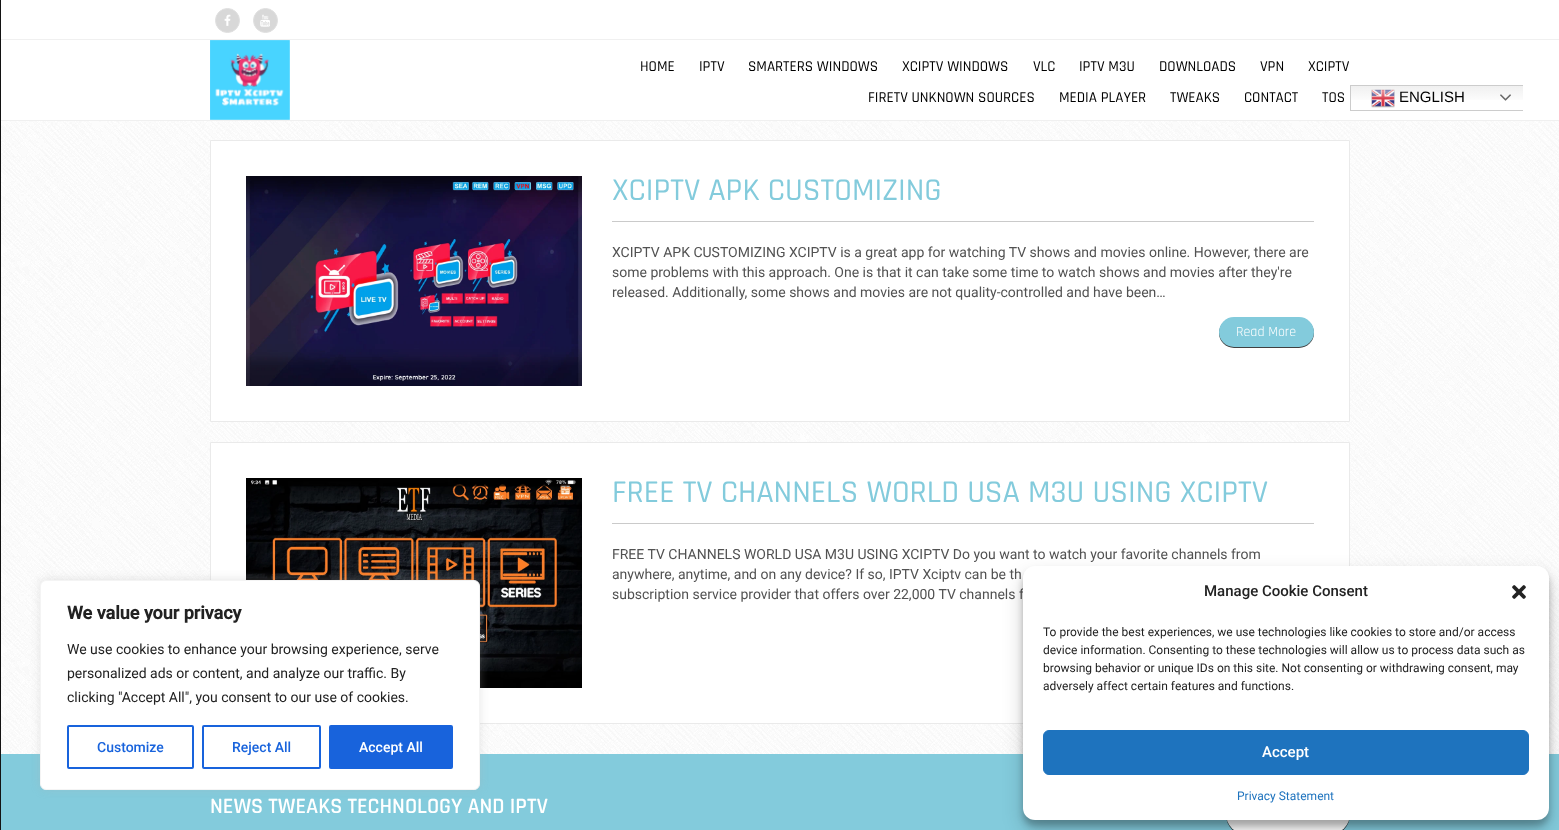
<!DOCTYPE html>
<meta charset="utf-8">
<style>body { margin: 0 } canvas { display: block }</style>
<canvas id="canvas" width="1559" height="830"></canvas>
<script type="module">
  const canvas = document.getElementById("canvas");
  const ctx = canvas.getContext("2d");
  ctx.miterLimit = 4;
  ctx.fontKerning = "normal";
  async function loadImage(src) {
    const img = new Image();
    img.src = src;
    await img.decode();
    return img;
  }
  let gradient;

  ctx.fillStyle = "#ffffff";
  ctx.fillRect(0, 0, 1559, 830);
  ctx.drawImage(await loadImage("img1.png"), 1, 121, 1558, 633);
  ctx.fillStyle = "#f0f0f0";
  ctx.fillRect(0, 120, 1559, 1);
  ctx.fillRect(0, 39, 1559, 1);
  ctx.fillStyle = "#d8d8d8";
  ctx.beginPath();
  ctx.arc(227.5, 20.5, 12, 0, Math.PI * 2);
  ctx.fill();
  ctx.strokeStyle = "#e0e0e0";
  ctx.stroke();
  ctx.drawImage(await loadImage("img2.png"), 224, 14, 7, 12);
  ctx.beginPath();
  ctx.arc(265.5, 20.5, 12, 0, Math.PI * 2);
  ctx.fill();
  ctx.stroke();
  ctx.drawImage(await loadImage("img3.png"), 260, 14, 10, 13);
  ctx.fillStyle = "#131313";
  ctx.fillRect(0, 0, 1, 830);
  ctx.drawImage(await loadImage("img4.png"), 210, 40, 80, 80);
  ctx.font = "500 15px Rajdhani";
  ctx.fillStyle = "#000000";
  ctx.fillText("HOME", 640, 71);
  ctx.fillText("IPTV", 699, 71);
  ctx.fillText("SMARTERS WINDOWS", 748, 71);
  ctx.fillText("XCIPTV WINDOWS", 902, 71);
  ctx.fillText("VLC", 1033, 71);
  ctx.fillText("IPTV M3U", 1079, 71);
  ctx.fillText("DOWNLOADS", 1159, 71);
  ctx.fillText("VPN", 1260, 71);
  ctx.fillText("XCIPTV", 1308, 71);
  ctx.fillText("FIRETV UNKNOWN SOURCES", 868, 102);
  ctx.fillText("MEDIA PLAYER", 1059, 102);
  ctx.fillText("TWEAKS", 1170, 102);
  ctx.fillText("CONTACT", 1244, 102);
  ctx.fillText("TOS", 1322, 102);
  gradient = ctx.createLinearGradient(1437, 85, 1437, 111);
  gradient.addColorStop(0, "#efefef");
  gradient.addColorStop(0.7, "#ffffff");
  ctx.fillStyle = gradient;
  ctx.fillRect(1351, 86, 172, 14);
  ctx.save();
  ctx.beginPath();
  ctx.rect(1350, 85, 173, 26);
  ctx.clip();
  ctx.strokeStyle = "#cccccc";
  ctx.strokeRect(1350.5, 85.5, 182, 25);
  ctx.restore();
  ctx.drawImage(await loadImage("img5.png"), 1371, 89, 24, 19);
  ctx.font = "15px Liberation Sans";
  ctx.fillStyle = "#000000";
  ctx.fillText("ENGLISH", 1399, 102);
  ctx.drawImage(await loadImage("img6.png"), 1500, 94, 11, 7);
  ctx.fillStyle = "#ffffff";
  ctx.beginPath();
  ctx.rect(210.5, 140.5, 1139, 281);
  ctx.fill();
  ctx.strokeStyle = "#eaeaea";
  ctx.stroke();
  ctx.drawImage(await loadImage("img7.png"), 246, 176, 336, 210);
  ctx.fillStyle = "#cacaca";
  ctx.fillRect(612, 221, 702, 1);
  ctx.font = "500 32px Rajdhani";
  ctx.fillStyle = "#83cbdc";
  ctx.fillText("XCIPTV APK CUSTOMIZING", 612, 200);
  ctx.font = "14px Roboto";
  ctx.fillStyle = "#525252";
  ctx.fillText("XCIPTV APK CUSTOMIZING XCIPTV is a great app for watching TV shows and movies online. However, there are", 612, 257);
  ctx.fillText("some problems with this approach. One is that it can take some time to watch shows and movies after they're", 612, 277);
  ctx.fillText("released. Additionally, some shows and movies are not quality-controlled and have been…", 612, 297);
  ctx.fillStyle = "rgba(0, 0, 0, 0.75)";
  ctx.filter = "blur(0.5px)";
  ctx.beginPath();
  ctx.roundRect(1219, 318, 95, 30, 15);
  ctx.fill();
  ctx.filter = "none";
  ctx.fillStyle = "#83cbdc";
  ctx.beginPath();
  ctx.roundRect(1219, 317, 95, 30, 15);
  ctx.fill();
  ctx.font = "14px Rajdhani";
  ctx.fillStyle = "#ffffff";
  ctx.fillText("Read More", 1236, 336);
  ctx.beginPath();
  ctx.rect(210.5, 442.5, 1139, 281);
  ctx.fill();
  ctx.stroke();
  ctx.drawImage(await loadImage("img8.png"), 246, 478, 336, 210);
  ctx.fillStyle = "#cacaca";
  ctx.fillRect(612, 523, 702, 1);
  ctx.font = "500 32px Rajdhani";
  ctx.fillStyle = "#83cbdc";
  ctx.fillText("FREE TV CHANNELS WORLD USA M3U USING XCIPTV", 612, 502);
  ctx.font = "14px Roboto";
  ctx.fillStyle = "#525252";
  ctx.fillText("FREE TV CHANNELS WORLD USA M3U USING XCIPTV Do you want to watch your favorite channels from", 612, 559);
  ctx.fillText("anywhere, anytime, and on any device? If so, IPTV Xciptv can be th", 612, 579);
  ctx.fillText("subscription service provider that offers over 22,000 TV channels f", 612, 599);
  ctx.fillStyle = "#83cbdc";
  ctx.fillRect(1, 754, 1558, 76);
  ctx.font = "600 22px Rajdhani";
  ctx.fillStyle = "#ffffff";
  ctx.fillText("NEWS TWEAKS TECHNOLOGY AND IPTV", 210, 813);
  ctx.fillStyle = "rgba(0, 0, 0, 0.75)";
  ctx.filter = "blur(0.5px)";
  ctx.beginPath();
  ctx.roundRect(1226, 795, 124, 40, 20);
  ctx.fill();
  ctx.filter = "none";
  ctx.fillStyle = "#ffffff";
  ctx.beginPath();
  ctx.roundRect(1226, 794, 124, 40, 20);
  ctx.fill();
  ctx.fillStyle = "rgba(172, 171, 171, 0.3)";
  ctx.filter = "blur(5px)";
  ctx.beginPath();
  ctx.roundRect(40, 579, 440, 210, 6);
  ctx.fill();
  ctx.filter = "none";
  ctx.fillStyle = "#ffffff";
  ctx.beginPath();
  ctx.roundRect(40.5, 580.5, 439, 209, 5.5);
  ctx.fill();
  ctx.strokeStyle = "#f4f4f4";
  ctx.stroke();
  ctx.font = "bold 18px Roboto";
  ctx.fillStyle = "#222222";
  ctx.fillText("We value your privacy", 67, 619);
  ctx.font = "14px Roboto";
  ctx.fillText("We use cookies to enhance your browsing experience, serve", 67, 654);
  ctx.fillText("personalized ads or content, and analyze our traffic. By", 67, 678);
  ctx.fillText("clicking \"Accept All\", you consent to our use of cookies.", 67, 702);
  ctx.beginPath();
  ctx.roundRect(68, 726, 125, 42, 1);
  ctx.strokeStyle = "#1863dc";
  ctx.lineWidth = 2;
  ctx.stroke();
  ctx.font = "500 14px Roboto";
  ctx.fillStyle = "#1863dc";
  ctx.fillText("Customize", 97, 752);
  ctx.beginPath();
  ctx.roundRect(203, 726, 117, 42, 1);
  ctx.stroke();
  ctx.fillText("Reject All", 232, 752);
  ctx.beginPath();
  ctx.roundRect(330, 726, 122, 42, 1);
  ctx.fill();
  ctx.stroke();
  ctx.fillStyle = "#ffffff";
  ctx.fillText("Accept All", 359, 752);
  ctx.fillStyle = "rgba(0, 0, 0, 0.23)";
  ctx.filter = "blur(3px)";
  ctx.beginPath();
  ctx.roundRect(1023, 572, 526, 254, 12);
  ctx.fill();
  ctx.filter = "none";
  ctx.fillStyle = "rgba(0, 0, 0, 0.19)";
  ctx.filter = "blur(10px)";
  ctx.beginPath();
  ctx.roundRect(1023, 576, 526, 254, 12);
  ctx.fill();
  ctx.filter = "none";
  ctx.fillStyle = "#ffffff";
  ctx.beginPath();
  ctx.roundRect(1023, 566, 526, 254, 12);
  ctx.fill();
  ctx.font = "500 15px Roboto";
  ctx.fillStyle = "#222222";
  ctx.fillText("Manage Cookie Consent", 1204, 596);
  ctx.drawImage(await loadImage("img9.png"), 1512, 585, 14, 14);
  ctx.font = "12px Roboto";
  ctx.fillText("To provide the best experiences, we use technologies like cookies to store and/or access", 1043, 636);
  ctx.fillText("device information. Consenting to these technologies will allow us to process data such as", 1043, 654);
  ctx.fillText("browsing behavior or unique IDs on this site. Not consenting or withdrawing consent, may", 1043, 672);
  ctx.fillText("adversely affect certain features and functions.", 1043, 690);
  ctx.fillStyle = "#1e73be";
  ctx.beginPath();
  ctx.roundRect(1043.5, 730.5, 485, 44, 5.5);
  ctx.fill();
  ctx.strokeStyle = "#1e73be";
  ctx.lineWidth = 1;
  ctx.stroke();
  ctx.font = "500 15px Roboto";
  ctx.fillStyle = "#ffffff";
  ctx.fillText("Accept", 1262, 757);
  ctx.font = "12px Roboto";
  ctx.fillStyle = "#1e73be";
  ctx.fillText("Privacy Statement", 1237, 800);
</script>
